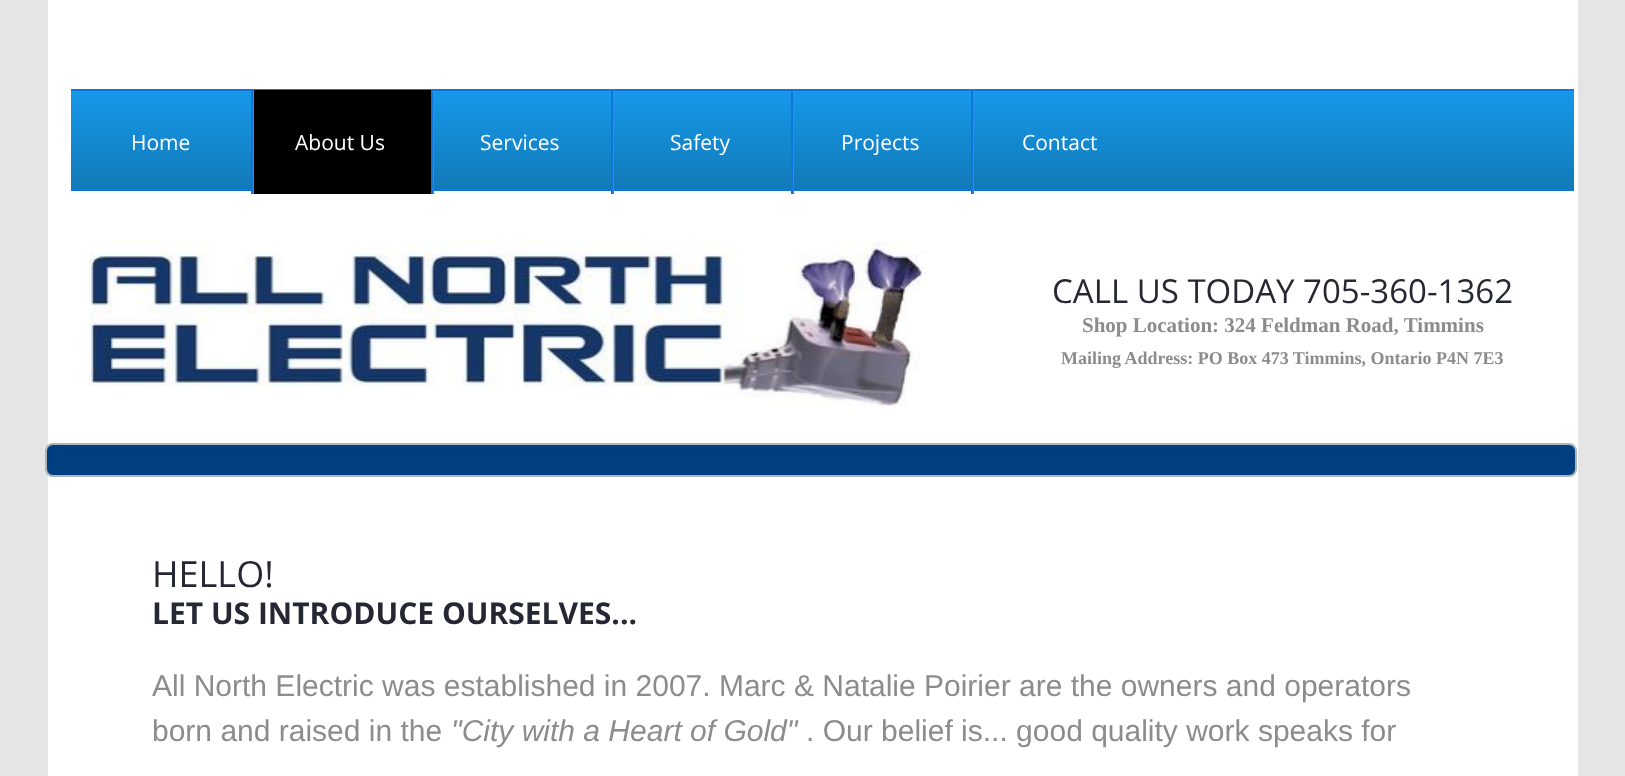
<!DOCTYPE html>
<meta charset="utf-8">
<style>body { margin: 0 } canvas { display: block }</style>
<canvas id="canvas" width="1625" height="776"></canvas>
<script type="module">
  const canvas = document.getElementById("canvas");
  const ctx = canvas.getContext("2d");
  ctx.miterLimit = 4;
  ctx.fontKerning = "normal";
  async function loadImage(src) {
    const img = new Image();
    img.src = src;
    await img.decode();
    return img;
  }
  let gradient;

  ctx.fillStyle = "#e5e5e5";
  ctx.fillRect(0, 0, 1625, 776);
  ctx.fillStyle = "#ffffff";
  ctx.fillRect(48, 0, 1530, 776);
  gradient = ctx.createLinearGradient(822, 90, 822, 189);
  gradient.addColorStop(0, "#1698ea");
  gradient.addColorStop(1, "#127ab8");
  ctx.fillStyle = gradient;
  ctx.fillRect(71, 91, 1503, 98);
  ctx.fillStyle = "#1075dd";
  ctx.fillRect(71, 89, 1503, 2);
  ctx.fillRect(71, 189, 1503, 2);
  ctx.font = "21px Open Sans";
  ctx.fillStyle = "#ffffff";
  ctx.fillText("Home", 131, 150);
  ctx.fillStyle = "#000000";
  ctx.fillRect(254, 90, 177, 104);
  ctx.fillStyle = "#1698ea";
  ctx.fillRect(253, 90, 1, 104);
  ctx.fillStyle = "#1075dd";
  ctx.fillRect(251, 90, 2, 104);
  ctx.fillStyle = "#ffffff";
  ctx.fillText("About Us", 295, 150);
  ctx.fillStyle = "#1698ea";
  ctx.fillRect(433, 90, 1, 104);
  ctx.fillStyle = "#1075dd";
  ctx.fillRect(431, 90, 2, 104);
  ctx.fillStyle = "#ffffff";
  ctx.fillText("Services", 480, 150);
  ctx.fillStyle = "#1698ea";
  ctx.fillRect(613, 90, 1, 104);
  ctx.fillStyle = "#1075dd";
  ctx.fillRect(611, 90, 2, 104);
  ctx.fillStyle = "#ffffff";
  ctx.fillText("Safety", 670, 150);
  ctx.fillStyle = "#1698ea";
  ctx.fillRect(793, 90, 1, 104);
  ctx.fillStyle = "#1075dd";
  ctx.fillRect(791, 90, 2, 104);
  ctx.fillStyle = "#ffffff";
  ctx.fillText("Projects", 841, 150);
  ctx.fillStyle = "#1698ea";
  ctx.fillRect(973, 90, 1, 104);
  ctx.fillStyle = "#1075dd";
  ctx.fillRect(971, 90, 2, 104);
  ctx.fillStyle = "#ffffff";
  ctx.fillText("Contact", 1022, 150);
  ctx.drawImage(await loadImage("img1.png"), 89, 242, 838, 165);
  ctx.font = "33px Open Sans";
  ctx.fillStyle = "#252832";
  ctx.fillText("CALL US TODAY 705-360-1362", 1052, 303);
  ctx.font = "bold 21px Liberation Serif";
  ctx.fillStyle = "#8c8c8c";
  ctx.fillText("Shop Location: 324 Feldman Road, Timmins", 1082, 332);
  ctx.font = "bold 18px Liberation Serif";
  ctx.fillText("Mailing Address: PO Box 473 Timmins, Ontario P4N 7E3", 1061, 364);
  ctx.fillStyle = "#003f7f";
  ctx.beginPath();
  ctx.roundRect(46, 444, 1530, 32, 7);
  ctx.fill();
  ctx.strokeStyle = "#a9b4bb";
  ctx.lineWidth = 2;
  ctx.stroke();
  ctx.font = "36px Open Sans";
  ctx.fillStyle = "#252832";
  ctx.fillText("HELLO!", 152, 587);
  ctx.font = "bold 30px Open Sans";
  ctx.fillText("LET US INTRODUCE OURSELVES...", 152, 624);
  ctx.font = "30px Liberation Sans";
  ctx.fillStyle = "#8c8c8c";
  ctx.fillText("All North Electric was established in 2007. Marc & Natalie Poirier are the owners and operators", 152, 696);
  ctx.fillText("born and raised in the", 152, 741);
  ctx.font = "italic 30px Liberation Sans";
  ctx.fillText("\"City with a Heart of Gold\"", 451, 741);
  ctx.font = "30px Liberation Sans";
  ctx.fillText(". Our belief is... good quality work speaks for", 806, 741);
</script>
